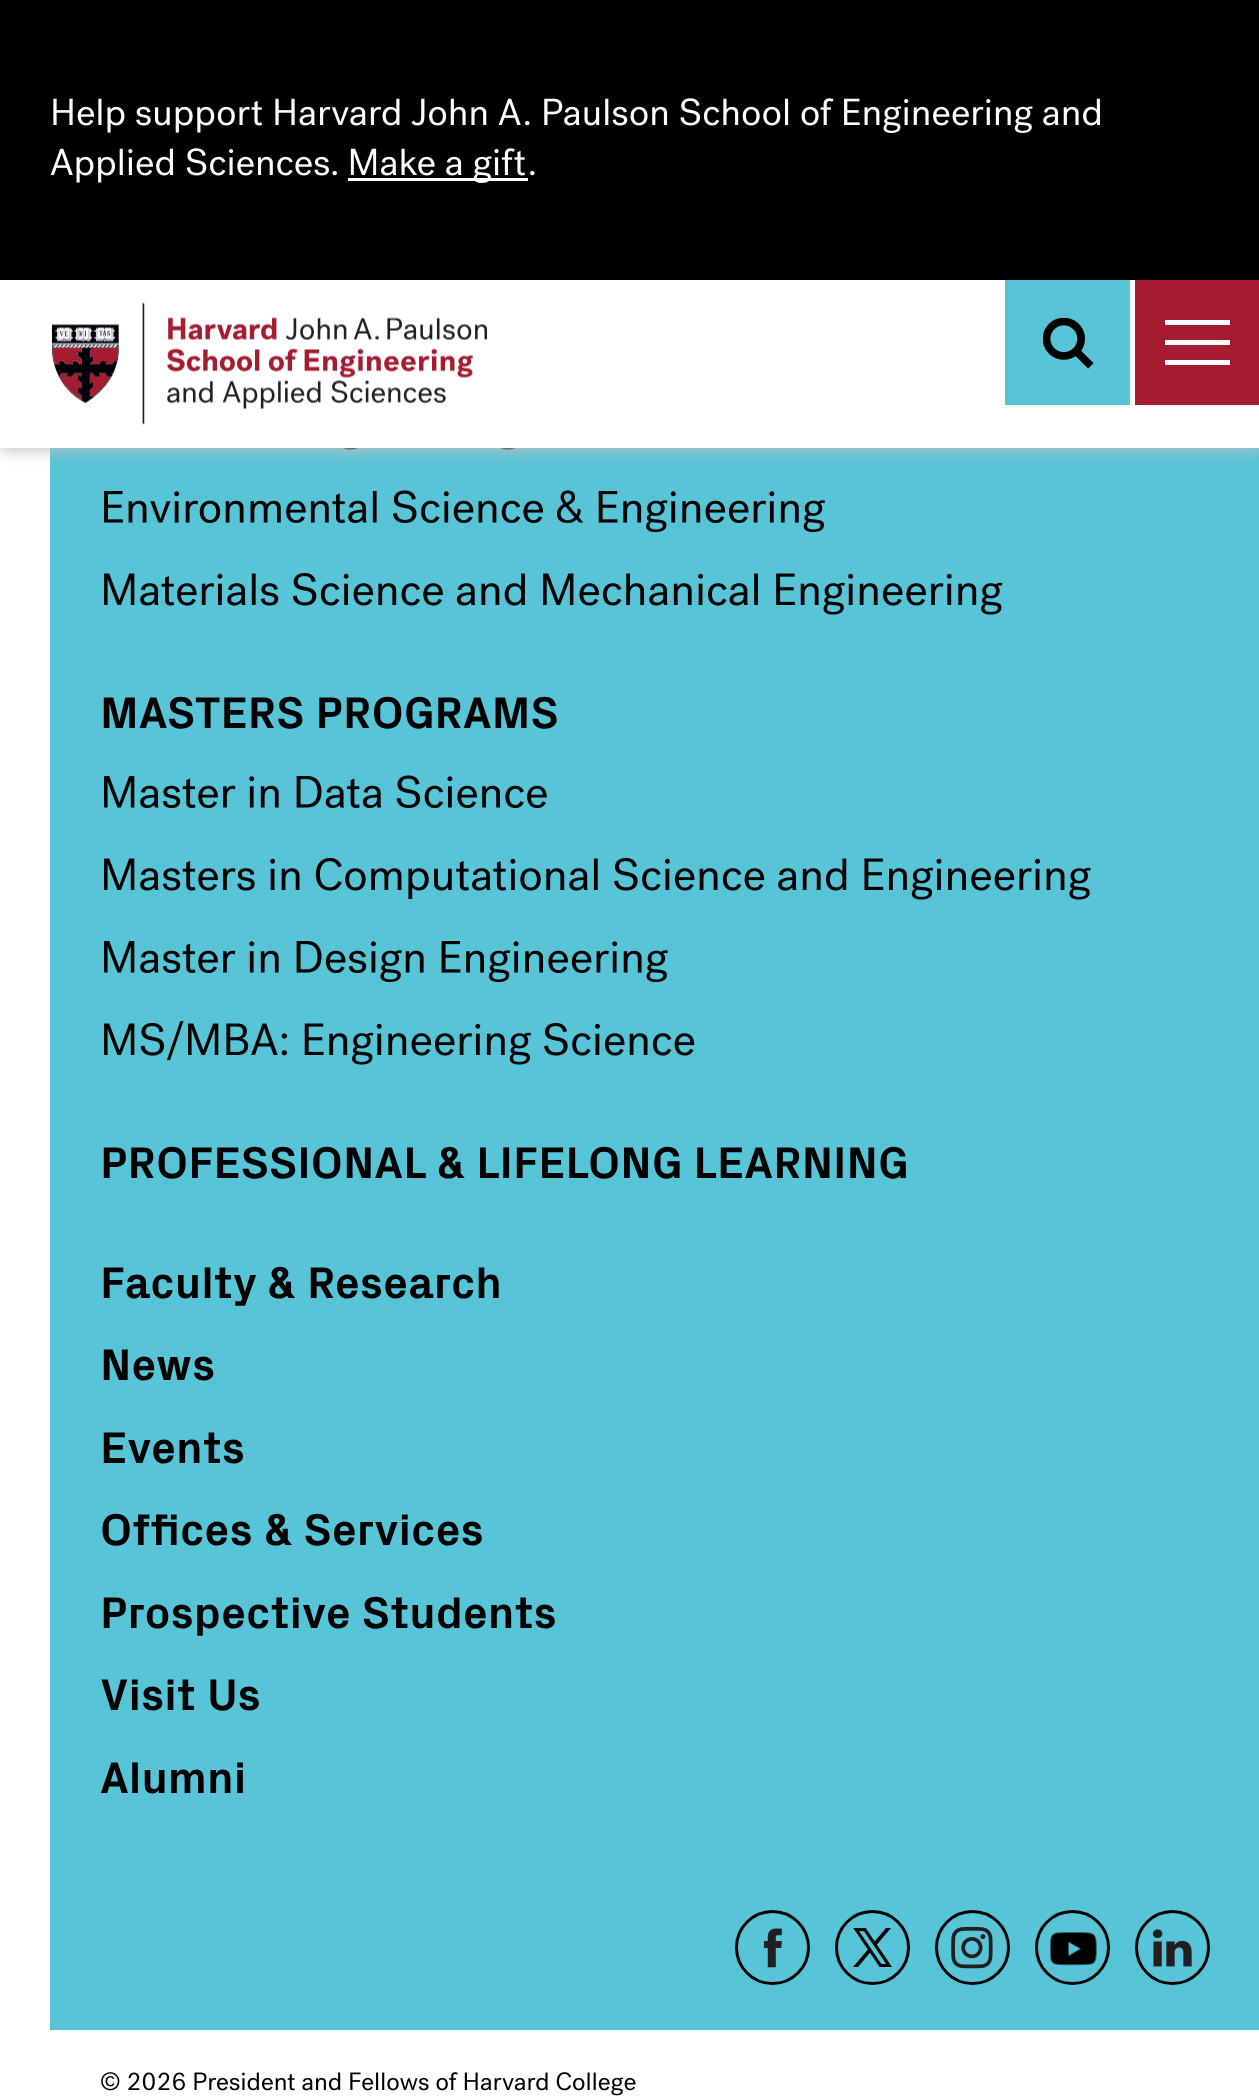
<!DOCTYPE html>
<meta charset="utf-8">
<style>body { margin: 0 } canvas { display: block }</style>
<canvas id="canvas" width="1259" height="2096"></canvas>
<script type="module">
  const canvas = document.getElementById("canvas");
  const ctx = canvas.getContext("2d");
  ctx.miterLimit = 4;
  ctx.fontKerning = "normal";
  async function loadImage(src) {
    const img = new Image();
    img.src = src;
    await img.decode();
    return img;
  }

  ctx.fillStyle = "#ffffff";
  ctx.fillRect(0, 0, 1259, 2096);
  ctx.fillStyle = "#57c5d7";
  ctx.fillRect(50, 448, 1209, 1582);
  ctx.drawImage(await loadImage("img7.png"), 343, 448, 172, 2);
  ctx.fillStyle = "#c0c0c0";
  ctx.filter = "blur(7.5px)";
  ctx.beginPath();
  ctx.rect(0, 3, 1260, 447);
  ctx.fill();
  ctx.filter = "none";
  ctx.fillStyle = "#ffffff";
  ctx.fillRect(0, 280, 1259, 168);
  ctx.fillStyle = "#000000";
  ctx.fillRect(0, 0, 1259, 280);
  ctx.drawImage(await loadImage("img1.png"), 53, 98, 1047, 35);
  ctx.drawImage(await loadImage("img2.png"), 50, 148, 287, 35);
  ctx.fillStyle = "#ffffff";
  ctx.fillRect(348, 178, 180, 3);
  ctx.drawImage(await loadImage("img3.png"), 350, 148, 176, 35);
  ctx.drawImage(await loadImage("img4.png"), 530, 171, 5, 5);
  ctx.drawImage(await loadImage("img5.png"), 51, 302, 436, 123);
  ctx.fillStyle = "#57c5d7";
  ctx.fillRect(1005, 280, 125, 125);
  ctx.drawImage(await loadImage("img6.png"), 1043, 318, 51, 51);
  ctx.fillStyle = "#a51c30";
  ctx.fillRect(1135, 280, 124, 125);
  ctx.fillStyle = "#ffffff";
  ctx.fillRect(1165, 340, 65, 5);
  ctx.fillRect(1165, 320, 65, 5);
  ctx.fillRect(1165, 360, 65, 5);
  ctx.drawImage(await loadImage("img8.png"), 104, 490, 721, 42);
  ctx.drawImage(await loadImage("img9.png"), 104, 573, 899, 42);
  ctx.font = "bold 45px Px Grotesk";
  ctx.fillStyle = "#000000";
  ctx.fillText("MASTERS PROGRAMS", 100, 728);
  ctx.drawImage(await loadImage("img10.png"), 104, 775, 443, 33);
  ctx.drawImage(await loadImage("img11.png"), 104, 858, 987, 42);
  ctx.drawImage(await loadImage("img12.png"), 104, 941, 564, 41);
  ctx.drawImage(await loadImage("img13.png"), 104, 1021, 591, 44);
  ctx.fillText("PROFESSIONAL & LIFELONG LEARNING", 100, 1178);
  ctx.fillText("Faculty & Research", 100, 1298);
  ctx.fillText("News", 100, 1380);
  ctx.fillText("Events", 100, 1463);
  ctx.fillText("Offices & Services", 100, 1545);
  ctx.fillText("Prospective Students", 100, 1628);
  ctx.fillText("Visit Us", 100, 1710);
  ctx.fillText("Alumni", 100, 1793);
  ctx.beginPath();
  ctx.arc(772.5, 1947.5, 36, 0, Math.PI * 2);
  ctx.strokeStyle = "#000000";
  ctx.lineWidth = 3;
  ctx.stroke();
  ctx.drawImage(await loadImage("img14.png"), 763, 1928, 19, 40);
  ctx.beginPath();
  ctx.arc(872.5, 1947.5, 36, 0, Math.PI * 2);
  ctx.stroke();
  ctx.drawImage(await loadImage("img15.png"), 853, 1928, 39, 39);
  ctx.beginPath();
  ctx.arc(972.5, 1947.5, 36, 0, Math.PI * 2);
  ctx.stroke();
  ctx.drawImage(await loadImage("img16.png"), 951, 1926, 42, 43);
  ctx.beginPath();
  ctx.arc(1072.5, 1947.5, 36, 0, Math.PI * 2);
  ctx.stroke();
  ctx.drawImage(await loadImage("img17.png"), 1050, 1932, 47, 34);
  ctx.beginPath();
  ctx.arc(1172.5, 1947.5, 36, 0, Math.PI * 2);
  ctx.stroke();
  ctx.drawImage(await loadImage("img18.png"), 1153, 1929, 39, 38);
  ctx.drawImage(await loadImage("img19.png"), 101, 2072, 535, 24);
</script>
